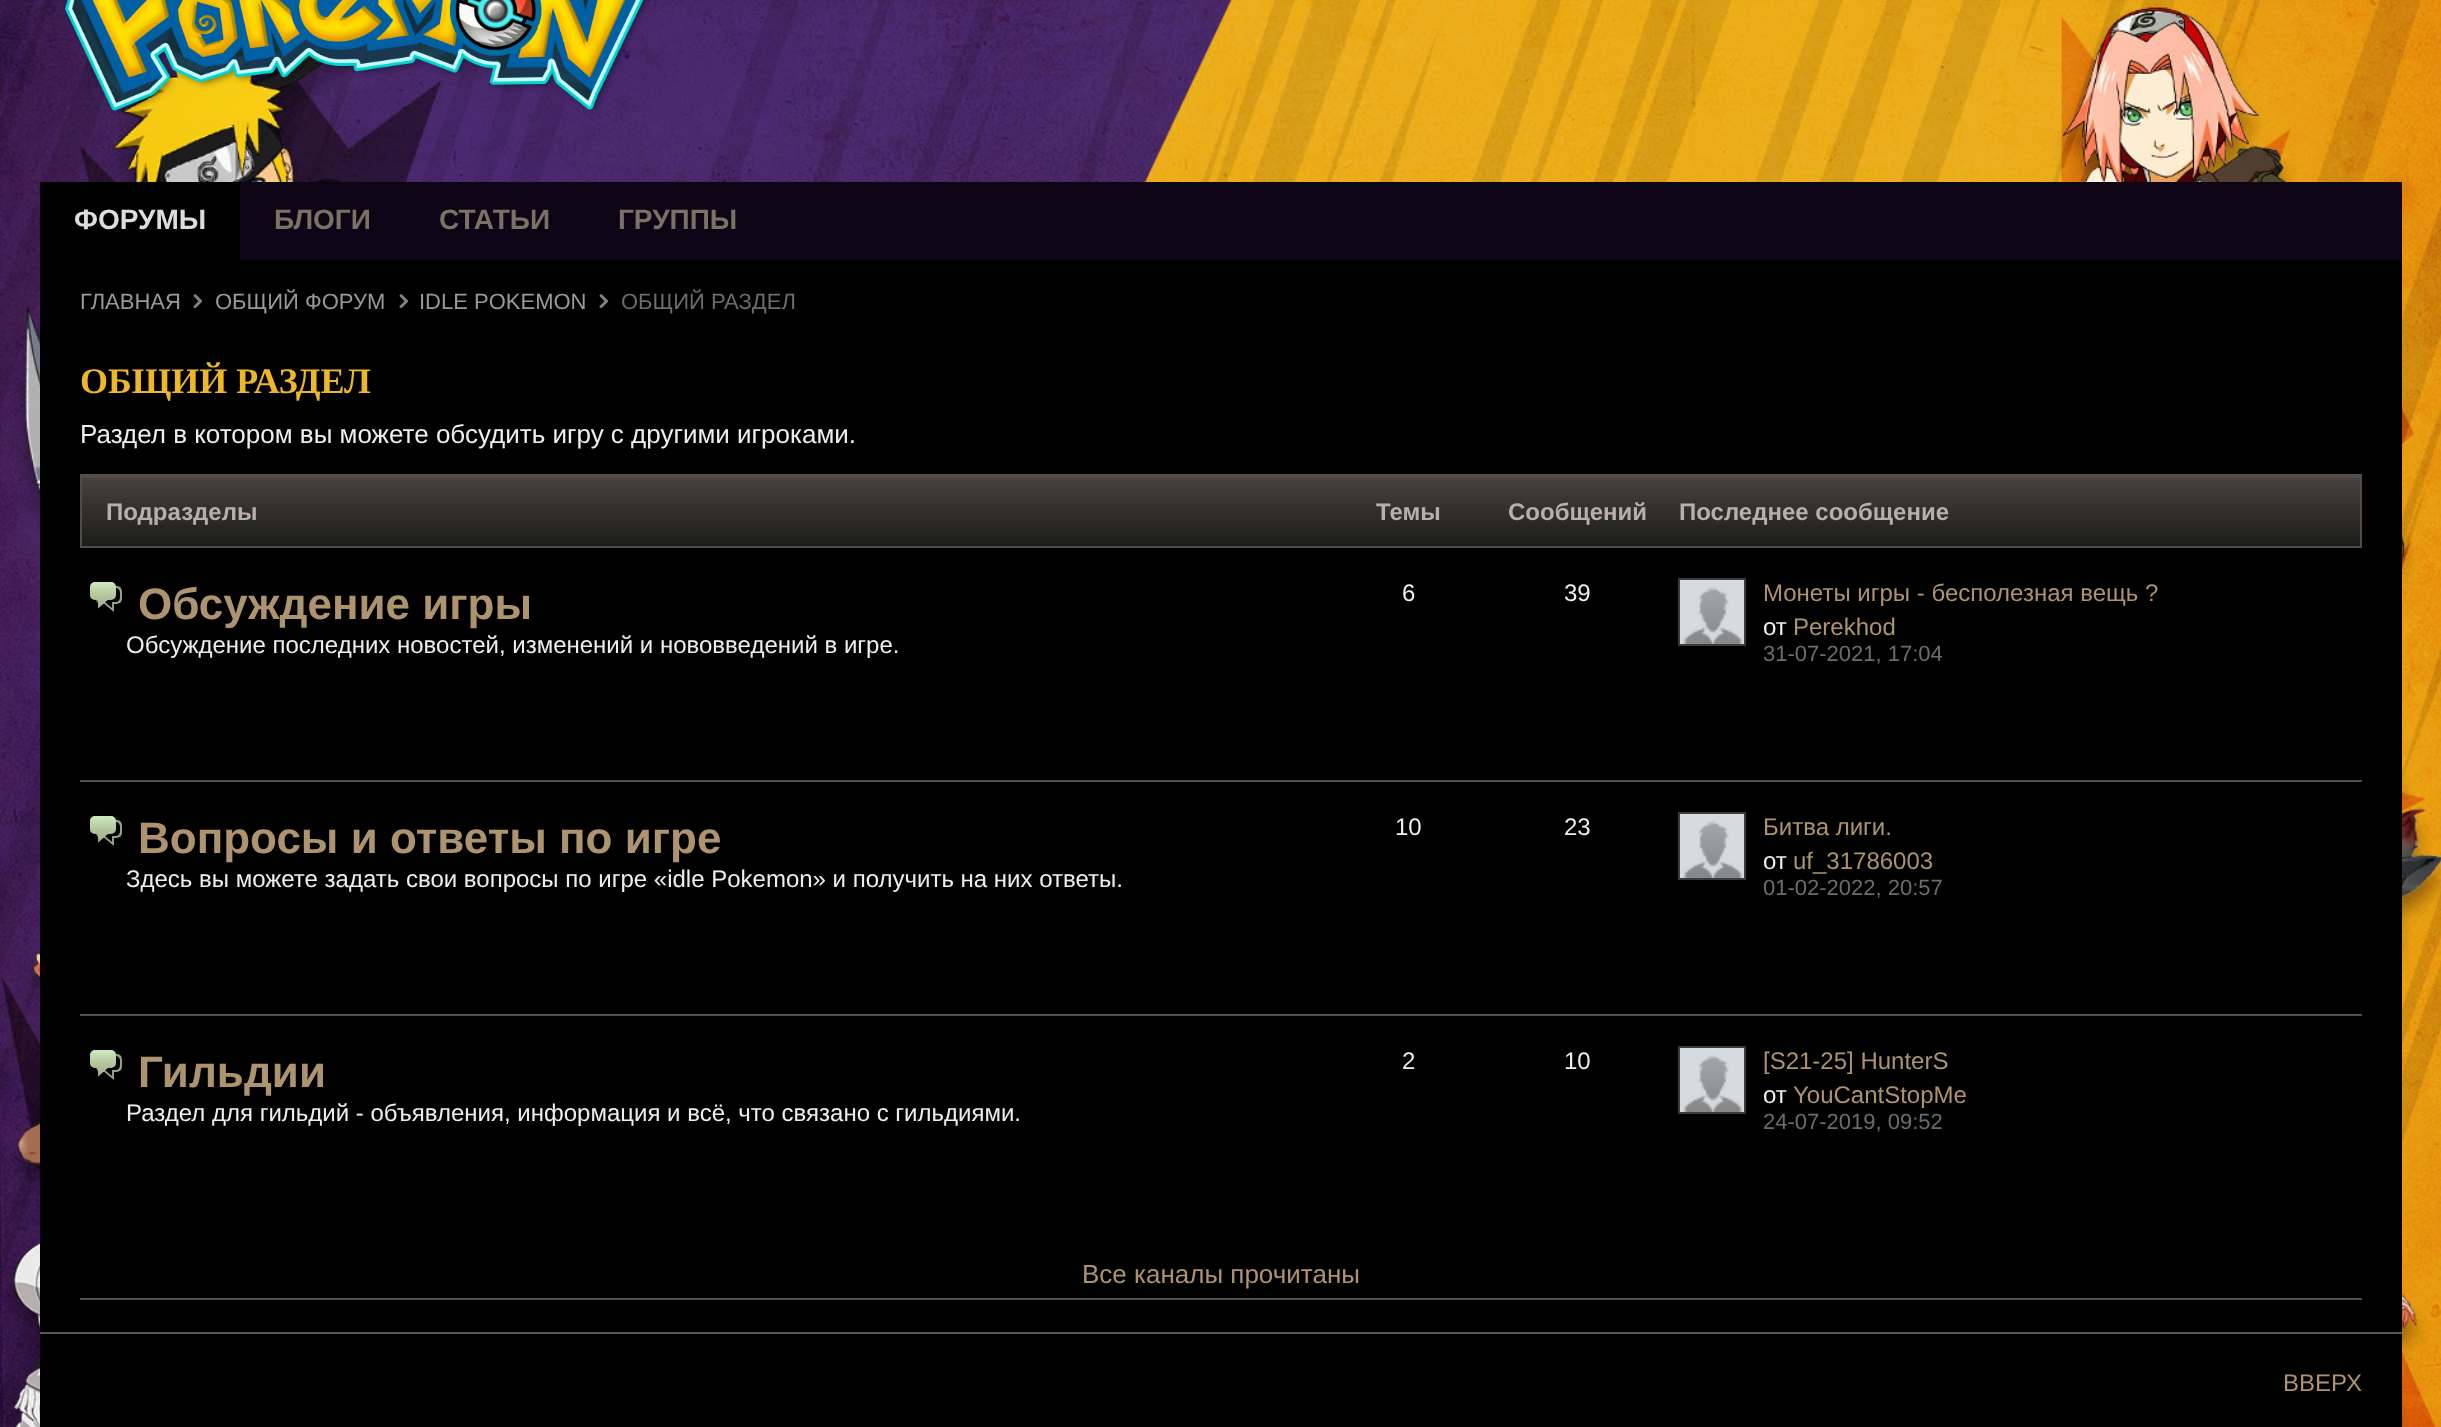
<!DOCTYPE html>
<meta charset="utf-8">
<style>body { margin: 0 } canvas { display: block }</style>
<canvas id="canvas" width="2441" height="1427"></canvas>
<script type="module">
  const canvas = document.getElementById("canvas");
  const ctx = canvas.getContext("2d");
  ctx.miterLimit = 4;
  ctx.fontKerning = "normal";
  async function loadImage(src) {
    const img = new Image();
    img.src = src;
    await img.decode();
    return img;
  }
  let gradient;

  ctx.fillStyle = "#ffffff";
  ctx.fillRect(0, 0, 2441, 1427);
  ctx.drawImage(await loadImage("img1.png"), 0, 0, 2441, 1427);
  ctx.drawImage(await loadImage("img2.png"), 65, 0, 586, 115);
  ctx.fillStyle = "#0d0515";
  ctx.fillRect(240, 182, 2162, 78);
  ctx.fillStyle = "#000000";
  ctx.fillRect(40, 182, 200, 78);
  ctx.font = "bold 28px Liberation Sans";
  ctx.fillStyle = "#dddddd";
  ctx.fillText("ФОРУМЫ", 74, 229);
  ctx.fillStyle = "#7b7165";
  ctx.fillText("БЛОГИ", 274, 229);
  ctx.fillText("СТАТЬИ", 439, 229);
  ctx.fillText("ГРУППЫ", 618, 229);
  ctx.fillStyle = "#000000";
  ctx.fillRect(40, 260, 2362, 1072);
  ctx.font = "22px Liberation Sans";
  ctx.fillStyle = "#9a9999";
  ctx.fillText("ГЛАВНАЯ", 80, 309);
  ctx.drawImage(await loadImage("img3.png"), 193, 294, 9, 14);
  ctx.fillText("ОБЩИЙ ФОРУМ", 215, 309);
  ctx.drawImage(await loadImage("img3.png"), 399, 294, 9, 14);
  ctx.fillText("IDLE POKEMON", 419, 309);
  ctx.drawImage(await loadImage("img3.png"), 599, 294, 9, 14);
  ctx.fillStyle = "#6a6d6f";
  ctx.fillText("ОБЩИЙ РАЗДЕЛ", 621, 309);
  ctx.font = "bold 36px Liberation Serif";
  ctx.fillStyle = "#eeb727";
  ctx.fillText("ОБЩИЙ РАЗДЕЛ", 80, 393);
  ctx.font = "26px Liberation Sans";
  ctx.fillStyle = "#eeeeee";
  ctx.fillText("Раздел в котором вы можете обсудить игру с другими игроками.", 80, 443);
  ctx.fillStyle = "#524e4c";
  ctx.fillRect(80, 474, 2282, 2);
  gradient = ctx.createLinearGradient(1221, 478, 1221, 546);
  gradient.addColorStop(0, "#454240");
  gradient.addColorStop(1, "#1c1c1b");
  ctx.fillStyle = gradient;
  ctx.fillRect(82, 478, 2278, 68);
  ctx.fillStyle = "#514c48";
  ctx.fillRect(80, 476, 2282, 2);
  ctx.fillRect(80, 546, 2282, 2);
  ctx.fillRect(80, 476, 2, 72);
  ctx.font = "bold 24px Liberation Sans";
  ctx.fillStyle = "#b6afad";
  ctx.fillText("Подразделы", 106, 520);
  ctx.fillText("Темы", 1376, 520);
  ctx.fillText("Сообщений", 1508, 520);
  ctx.fillStyle = "#514c48";
  ctx.fillRect(2360, 476, 2, 72);
  ctx.fillStyle = "#b6afad";
  ctx.fillText("Последнее сообщение", 1679, 520);
  ctx.drawImage(await loadImage("img4.png"), 90, 582, 32, 30);
  ctx.font = "bold 44px Liberation Sans";
  ctx.fillStyle = "#ad936e";
  ctx.fillText("Обсуждение игры", 138, 619);
  ctx.font = "24px Liberation Sans";
  ctx.fillStyle = "#eeeeee";
  ctx.fillText("Обсуждение последних новостей, изменений и нововведений в игре.", 126, 653);
  ctx.fillText("6", 1402, 601);
  ctx.fillText("39", 1564, 601);
  ctx.strokeStyle = "#3b3b3b";
  ctx.lineWidth = 2;
  ctx.strokeRect(1679, 579, 66, 66);
  ctx.drawImage(await loadImage("img5.png"), 1680, 580, 64, 64);
  ctx.fillStyle = "#ad936e";
  ctx.fillText("Монеты игры - бесполезная вещь ?", 1763, 601);
  ctx.fillStyle = "#eeeeee";
  ctx.fillText("от", 1763, 635);
  ctx.fillStyle = "#ad936e";
  ctx.fillText("Perekhod", 1793, 635);
  ctx.font = "22px Liberation Sans";
  ctx.fillStyle = "#6a6d6f";
  ctx.fillText("31-07-2021, 17:04", 1763, 661);
  ctx.fillStyle = "#524e4c";
  ctx.fillRect(80, 780, 2282, 2);
  ctx.drawImage(await loadImage("img4.png"), 90, 816, 32, 30);
  ctx.font = "bold 44px Liberation Sans";
  ctx.fillStyle = "#ad936e";
  ctx.fillText("Вопросы и ответы по игре", 138, 853);
  ctx.font = "24px Liberation Sans";
  ctx.fillStyle = "#eeeeee";
  ctx.fillText("Здесь вы можете задать свои вопросы по игре «idle Pokemon» и получить на них ответы.", 126, 887);
  ctx.fillText("10", 1395, 835);
  ctx.fillText("23", 1564, 835);
  ctx.strokeRect(1679, 813, 66, 66);
  ctx.drawImage(await loadImage("img5.png"), 1680, 814, 64, 64);
  ctx.fillStyle = "#ad936e";
  ctx.fillText("Битва лиги.", 1763, 835);
  ctx.fillStyle = "#eeeeee";
  ctx.fillText("от", 1763, 869);
  ctx.fillStyle = "#ad936e";
  ctx.fillText("uf_31786003", 1793, 869);
  ctx.font = "22px Liberation Sans";
  ctx.fillStyle = "#6a6d6f";
  ctx.fillText("01-02-2022, 20:57", 1763, 895);
  ctx.fillStyle = "#524e4c";
  ctx.fillRect(80, 1014, 2282, 2);
  ctx.drawImage(await loadImage("img4.png"), 90, 1050, 32, 30);
  ctx.font = "bold 44px Liberation Sans";
  ctx.fillStyle = "#ad936e";
  ctx.fillText("Гильдии", 138, 1087);
  ctx.font = "24px Liberation Sans";
  ctx.fillStyle = "#eeeeee";
  ctx.fillText("Раздел для гильдий - объявления, информация и всё, что связано с гильдиями.", 126, 1121);
  ctx.fillText("2", 1402, 1069);
  ctx.fillText("10", 1564, 1069);
  ctx.strokeRect(1679, 1047, 66, 66);
  ctx.drawImage(await loadImage("img5.png"), 1680, 1048, 64, 64);
  ctx.fillStyle = "#ad936e";
  ctx.fillText("[S21-25] HunterS", 1763, 1069);
  ctx.fillStyle = "#eeeeee";
  ctx.fillText("от", 1763, 1103);
  ctx.fillStyle = "#ad936e";
  ctx.fillText("YouCantStopMe", 1793, 1103);
  ctx.font = "22px Liberation Sans";
  ctx.fillStyle = "#6a6d6f";
  ctx.fillText("24-07-2019, 09:52", 1763, 1129);
  ctx.fillStyle = "#524e4c";
  ctx.fillRect(80, 1298, 2282, 2);
  ctx.font = "26px Liberation Sans";
  ctx.fillStyle = "#ad936e";
  ctx.fillText("Все каналы прочитаны", 1082, 1283);
  ctx.fillStyle = "#000000";
  ctx.fillRect(40, 1334, 2362, 93);
  ctx.fillStyle = "#585858";
  ctx.fillRect(40, 1332, 2362, 2);
  ctx.font = "24px Liberation Sans";
  ctx.fillStyle = "#ad936e";
  ctx.fillText("ВВЕРХ", 2283, 1391);
</script>
